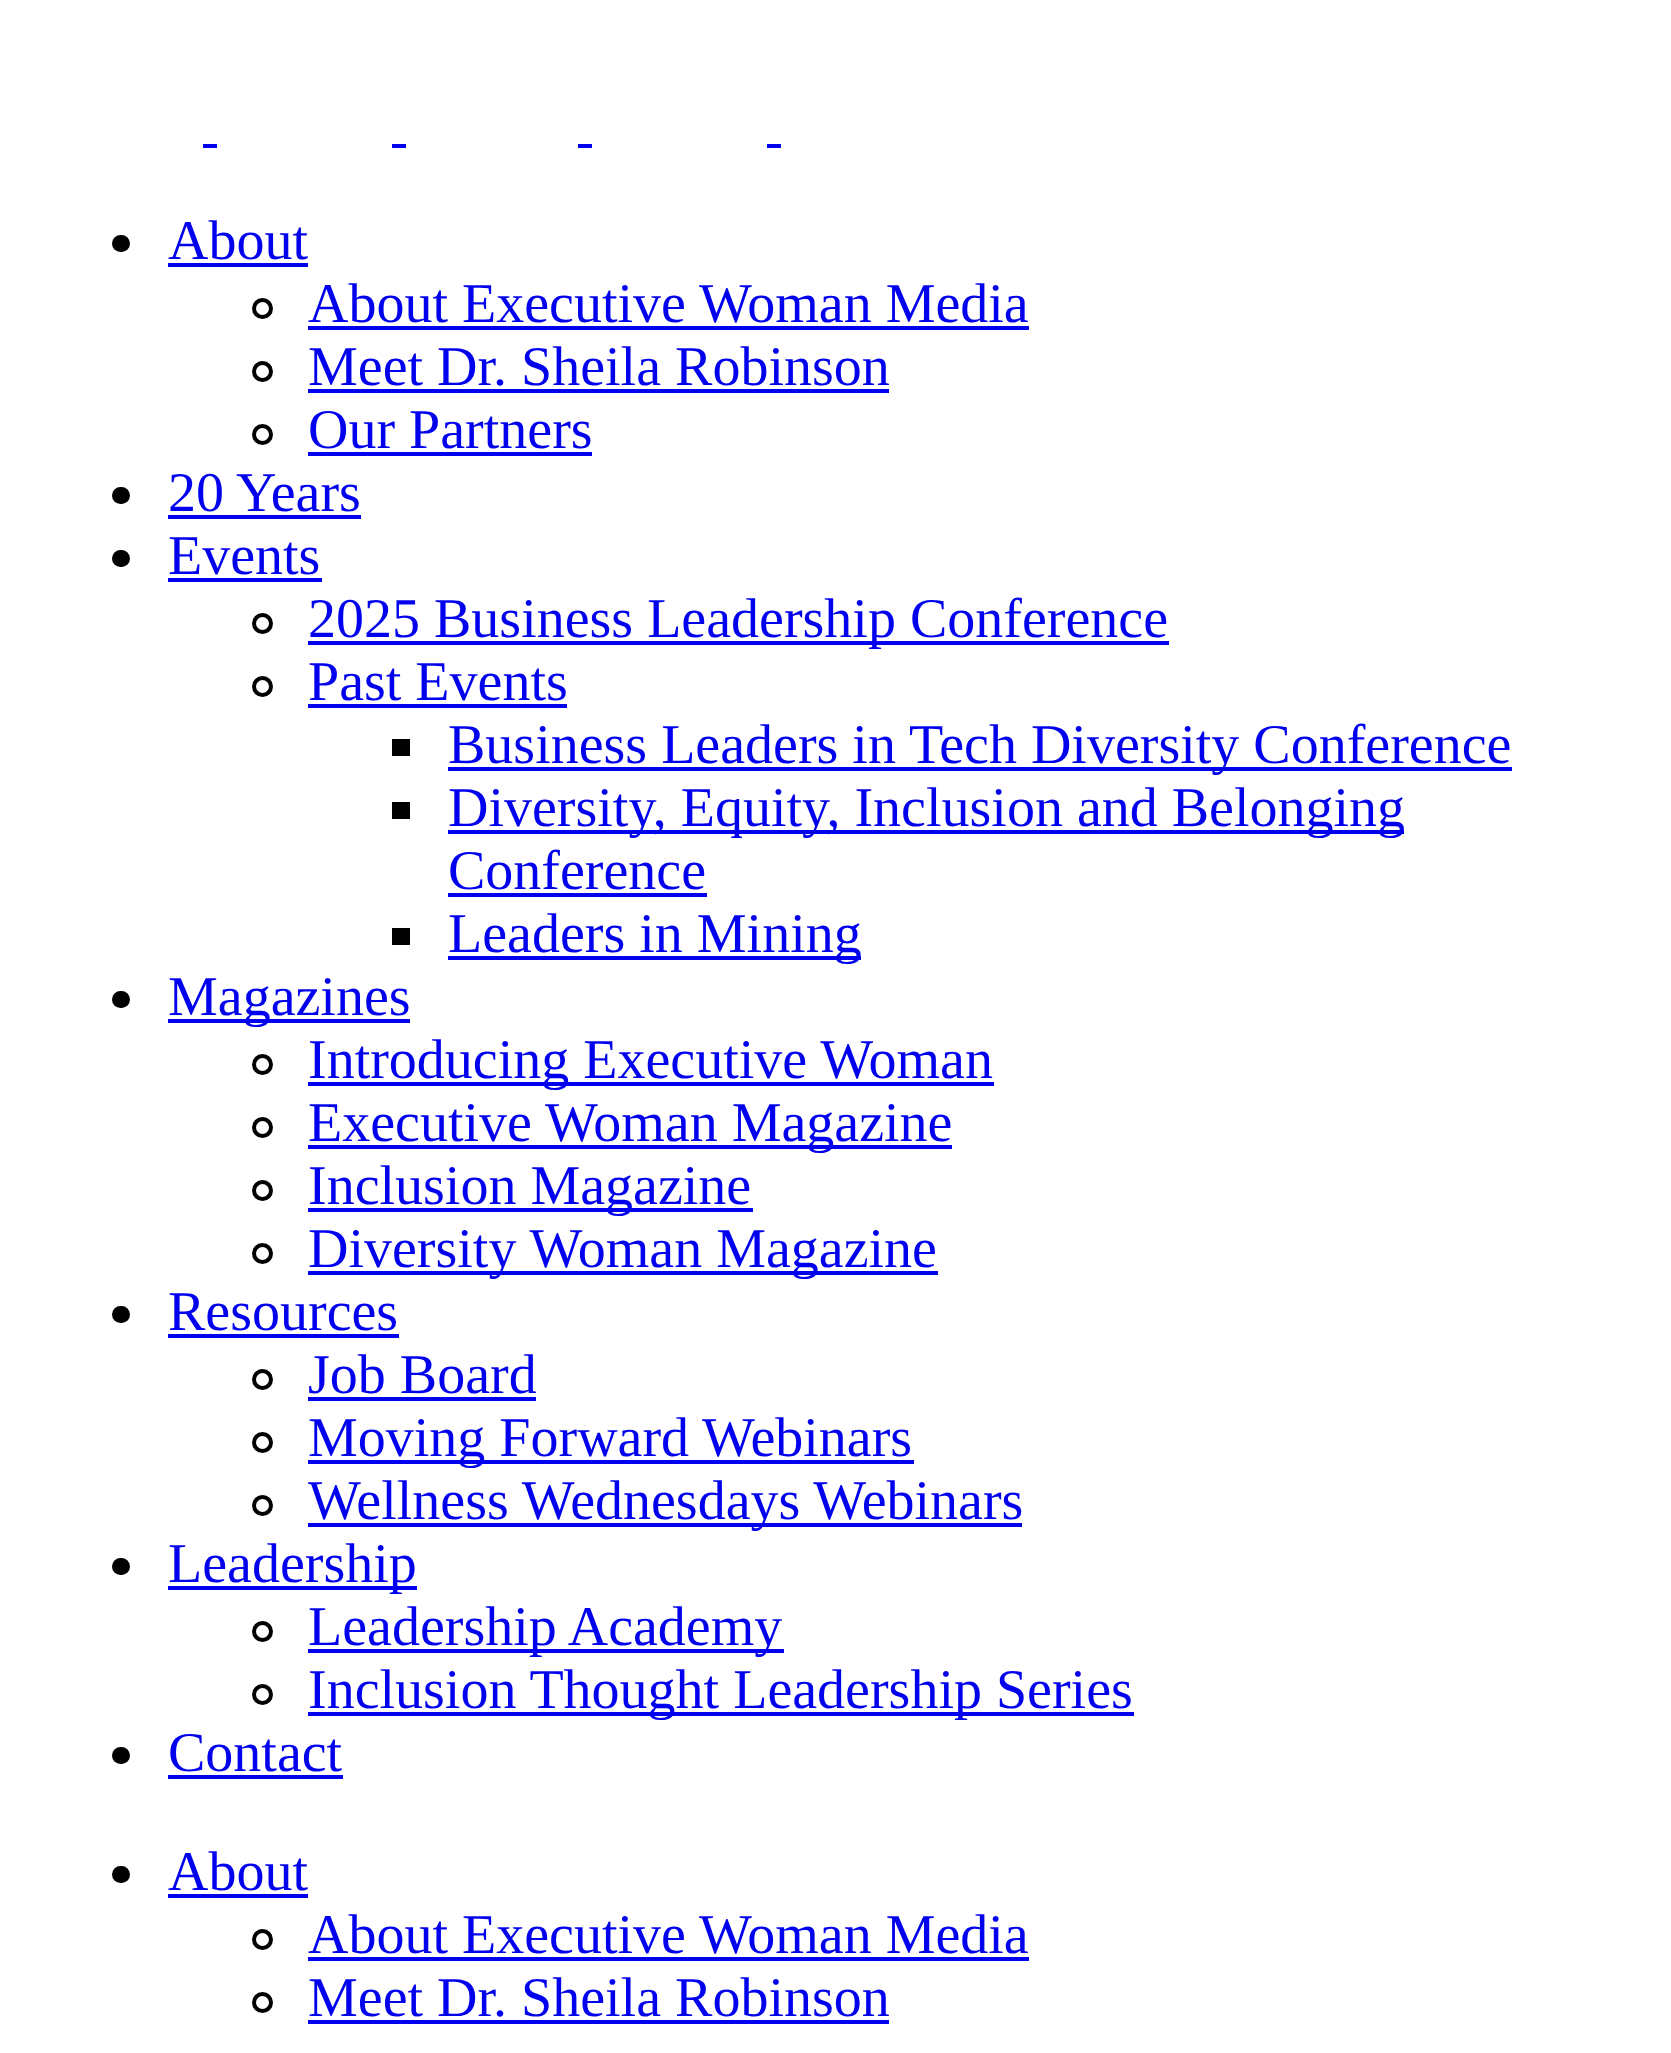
<!DOCTYPE html>
<meta charset="utf-8">
<style>body { margin: 0 } canvas { display: block }</style>
<canvas id="canvas" width="1671" height="2053"></canvas>
<script type="module">
  const canvas = document.getElementById("canvas");
  const ctx = canvas.getContext("2d");
  ctx.miterLimit = 4;
  ctx.fontKerning = "normal";

  ctx.fillStyle = "#ffffff";
  ctx.fillRect(0, 0, 1671, 2053);
  ctx.fillStyle = "#0000ee";
  ctx.fillRect(203, 144, 14, 4);
  ctx.fillRect(392, 144, 14, 4);
  ctx.fillRect(578, 144, 14, 4);
  ctx.fillRect(767, 144, 14, 4);
  ctx.fillStyle = "#000000";
  ctx.beginPath();
  ctx.roundRect(112, 235, 18, 17, 8.5);
  ctx.fill();
  ctx.font = "56px Liberation Serif";
  ctx.fillStyle = "#0000ee";
  ctx.fillText("About", 168, 259);
  ctx.fillRect(168, 263, 140, 4);
  ctx.beginPath();
  ctx.arc(262.5, 308.5, 8.5, 0, Math.PI * 2);
  ctx.strokeStyle = "#000000";
  ctx.lineWidth = 4;
  ctx.stroke();
  ctx.fillText("About Executive Woman Media", 308, 322);
  ctx.fillRect(308, 326, 721, 4);
  ctx.beginPath();
  ctx.arc(262.5, 371.5, 8.5, 0, Math.PI * 2);
  ctx.stroke();
  ctx.fillText("Meet Dr. Sheila Robinson", 308, 385);
  ctx.fillRect(308, 389, 581, 4);
  ctx.beginPath();
  ctx.arc(262.5, 434.5, 8.5, 0, Math.PI * 2);
  ctx.stroke();
  ctx.fillText("Our Partners", 308, 448);
  ctx.fillRect(308, 452, 284, 4);
  ctx.fillStyle = "#000000";
  ctx.beginPath();
  ctx.roundRect(112, 487, 18, 17, 8.5);
  ctx.fill();
  ctx.fillStyle = "#0000ee";
  ctx.fillText("20 Years", 168, 511);
  ctx.fillRect(168, 515, 193, 4);
  ctx.fillStyle = "#000000";
  ctx.beginPath();
  ctx.roundRect(112, 550, 18, 17, 8.5);
  ctx.fill();
  ctx.fillStyle = "#0000ee";
  ctx.fillText("Events", 168, 574);
  ctx.fillRect(168, 578, 154, 4);
  ctx.beginPath();
  ctx.arc(262.5, 623.5, 8.5, 0, Math.PI * 2);
  ctx.stroke();
  ctx.fillRect(308, 641, 861, 4);
  ctx.fillText("2025 Business Leadership Conference", 308, 637);
  ctx.beginPath();
  ctx.arc(262.5, 686.5, 8.5, 0, Math.PI * 2);
  ctx.stroke();
  ctx.fillText("Past Events", 308, 700);
  ctx.fillRect(308, 704, 259, 4);
  ctx.fillStyle = "#000000";
  ctx.fillRect(392, 739, 18, 17);
  ctx.fillStyle = "#0000ee";
  ctx.fillRect(448, 767, 1064, 4);
  ctx.fillText("Business Leaders in Tech Diversity Conference", 448, 763);
  ctx.fillStyle = "#000000";
  ctx.fillRect(392, 802, 18, 17);
  ctx.fillStyle = "#0000ee";
  ctx.fillRect(448, 830, 956, 4);
  ctx.fillText("Diversity, Equity, Inclusion and Belonging", 448, 826);
  ctx.fillText("Conference", 448, 889);
  ctx.fillRect(448, 893, 259, 4);
  ctx.fillStyle = "#000000";
  ctx.fillRect(392, 928, 18, 17);
  ctx.fillStyle = "#0000ee";
  ctx.fillRect(448, 956, 413, 4);
  ctx.fillText("Leaders in Mining", 448, 952);
  ctx.fillStyle = "#000000";
  ctx.beginPath();
  ctx.roundRect(112, 991, 18, 17, 8.5);
  ctx.fill();
  ctx.fillStyle = "#0000ee";
  ctx.fillRect(168, 1019, 242, 4);
  ctx.fillText("Magazines", 168, 1015);
  ctx.beginPath();
  ctx.arc(262.5, 1064.5, 8.5, 0, Math.PI * 2);
  ctx.stroke();
  ctx.fillRect(308, 1082, 686, 4);
  ctx.fillText("Introducing Executive Woman", 308, 1078);
  ctx.beginPath();
  ctx.arc(262.5, 1127.5, 8.5, 0, Math.PI * 2);
  ctx.stroke();
  ctx.fillRect(308, 1145, 644, 4);
  ctx.fillText("Executive Woman Magazine", 308, 1141);
  ctx.beginPath();
  ctx.arc(262.5, 1190.5, 8.5, 0, Math.PI * 2);
  ctx.stroke();
  ctx.fillRect(308, 1208, 445, 4);
  ctx.fillText("Inclusion Magazine", 308, 1204);
  ctx.beginPath();
  ctx.arc(262.5, 1253.5, 8.5, 0, Math.PI * 2);
  ctx.stroke();
  ctx.fillRect(308, 1271, 630, 4);
  ctx.fillText("Diversity Woman Magazine", 308, 1267);
  ctx.fillStyle = "#000000";
  ctx.beginPath();
  ctx.roundRect(112, 1306, 18, 17, 8.5);
  ctx.fill();
  ctx.fillStyle = "#0000ee";
  ctx.fillText("Resources", 168, 1330);
  ctx.fillRect(168, 1334, 231, 4);
  ctx.beginPath();
  ctx.arc(262.5, 1379.5, 8.5, 0, Math.PI * 2);
  ctx.stroke();
  ctx.fillText("Job Board", 308, 1393);
  ctx.fillRect(308, 1397, 228, 4);
  ctx.beginPath();
  ctx.arc(262.5, 1442.5, 8.5, 0, Math.PI * 2);
  ctx.stroke();
  ctx.fillRect(308, 1460, 606, 4);
  ctx.fillText("Moving Forward Webinars", 308, 1456);
  ctx.beginPath();
  ctx.arc(262.5, 1505.5, 8.5, 0, Math.PI * 2);
  ctx.stroke();
  ctx.fillRect(308, 1523, 714, 4);
  ctx.fillText("Wellness Wednesdays Webinars", 308, 1519);
  ctx.fillStyle = "#000000";
  ctx.beginPath();
  ctx.roundRect(112, 1558, 18, 17, 8.5);
  ctx.fill();
  ctx.fillStyle = "#0000ee";
  ctx.fillRect(168, 1586, 249, 4);
  ctx.fillText("Leadership", 168, 1582);
  ctx.beginPath();
  ctx.arc(262.5, 1631.5, 8.5, 0, Math.PI * 2);
  ctx.stroke();
  ctx.fillRect(308, 1649, 476, 4);
  ctx.fillText("Leadership Academy", 308, 1645);
  ctx.beginPath();
  ctx.arc(262.5, 1694.5, 8.5, 0, Math.PI * 2);
  ctx.stroke();
  ctx.fillRect(308, 1712, 826, 4);
  ctx.fillText("Inclusion Thought Leadership Series", 308, 1708);
  ctx.fillStyle = "#000000";
  ctx.beginPath();
  ctx.roundRect(112, 1747, 18, 17, 8.5);
  ctx.fill();
  ctx.fillStyle = "#0000ee";
  ctx.fillText("Contact", 168, 1771);
  ctx.fillRect(168, 1775, 175, 4);
  ctx.fillStyle = "#000000";
  ctx.beginPath();
  ctx.roundRect(112, 1866, 18, 17, 8.5);
  ctx.fill();
  ctx.fillStyle = "#0000ee";
  ctx.fillText("About", 168, 1890);
  ctx.fillRect(168, 1894, 140, 4);
  ctx.beginPath();
  ctx.arc(262.5, 1939.5, 8.5, 0, Math.PI * 2);
  ctx.stroke();
  ctx.fillText("About Executive Woman Media", 308, 1953);
  ctx.fillRect(308, 1957, 721, 4);
  ctx.beginPath();
  ctx.arc(262.5, 2002.5, 8.5, 0, Math.PI * 2);
  ctx.stroke();
  ctx.fillText("Meet Dr. Sheila Robinson", 308, 2016);
  ctx.fillRect(308, 2020, 581, 4);
</script>
